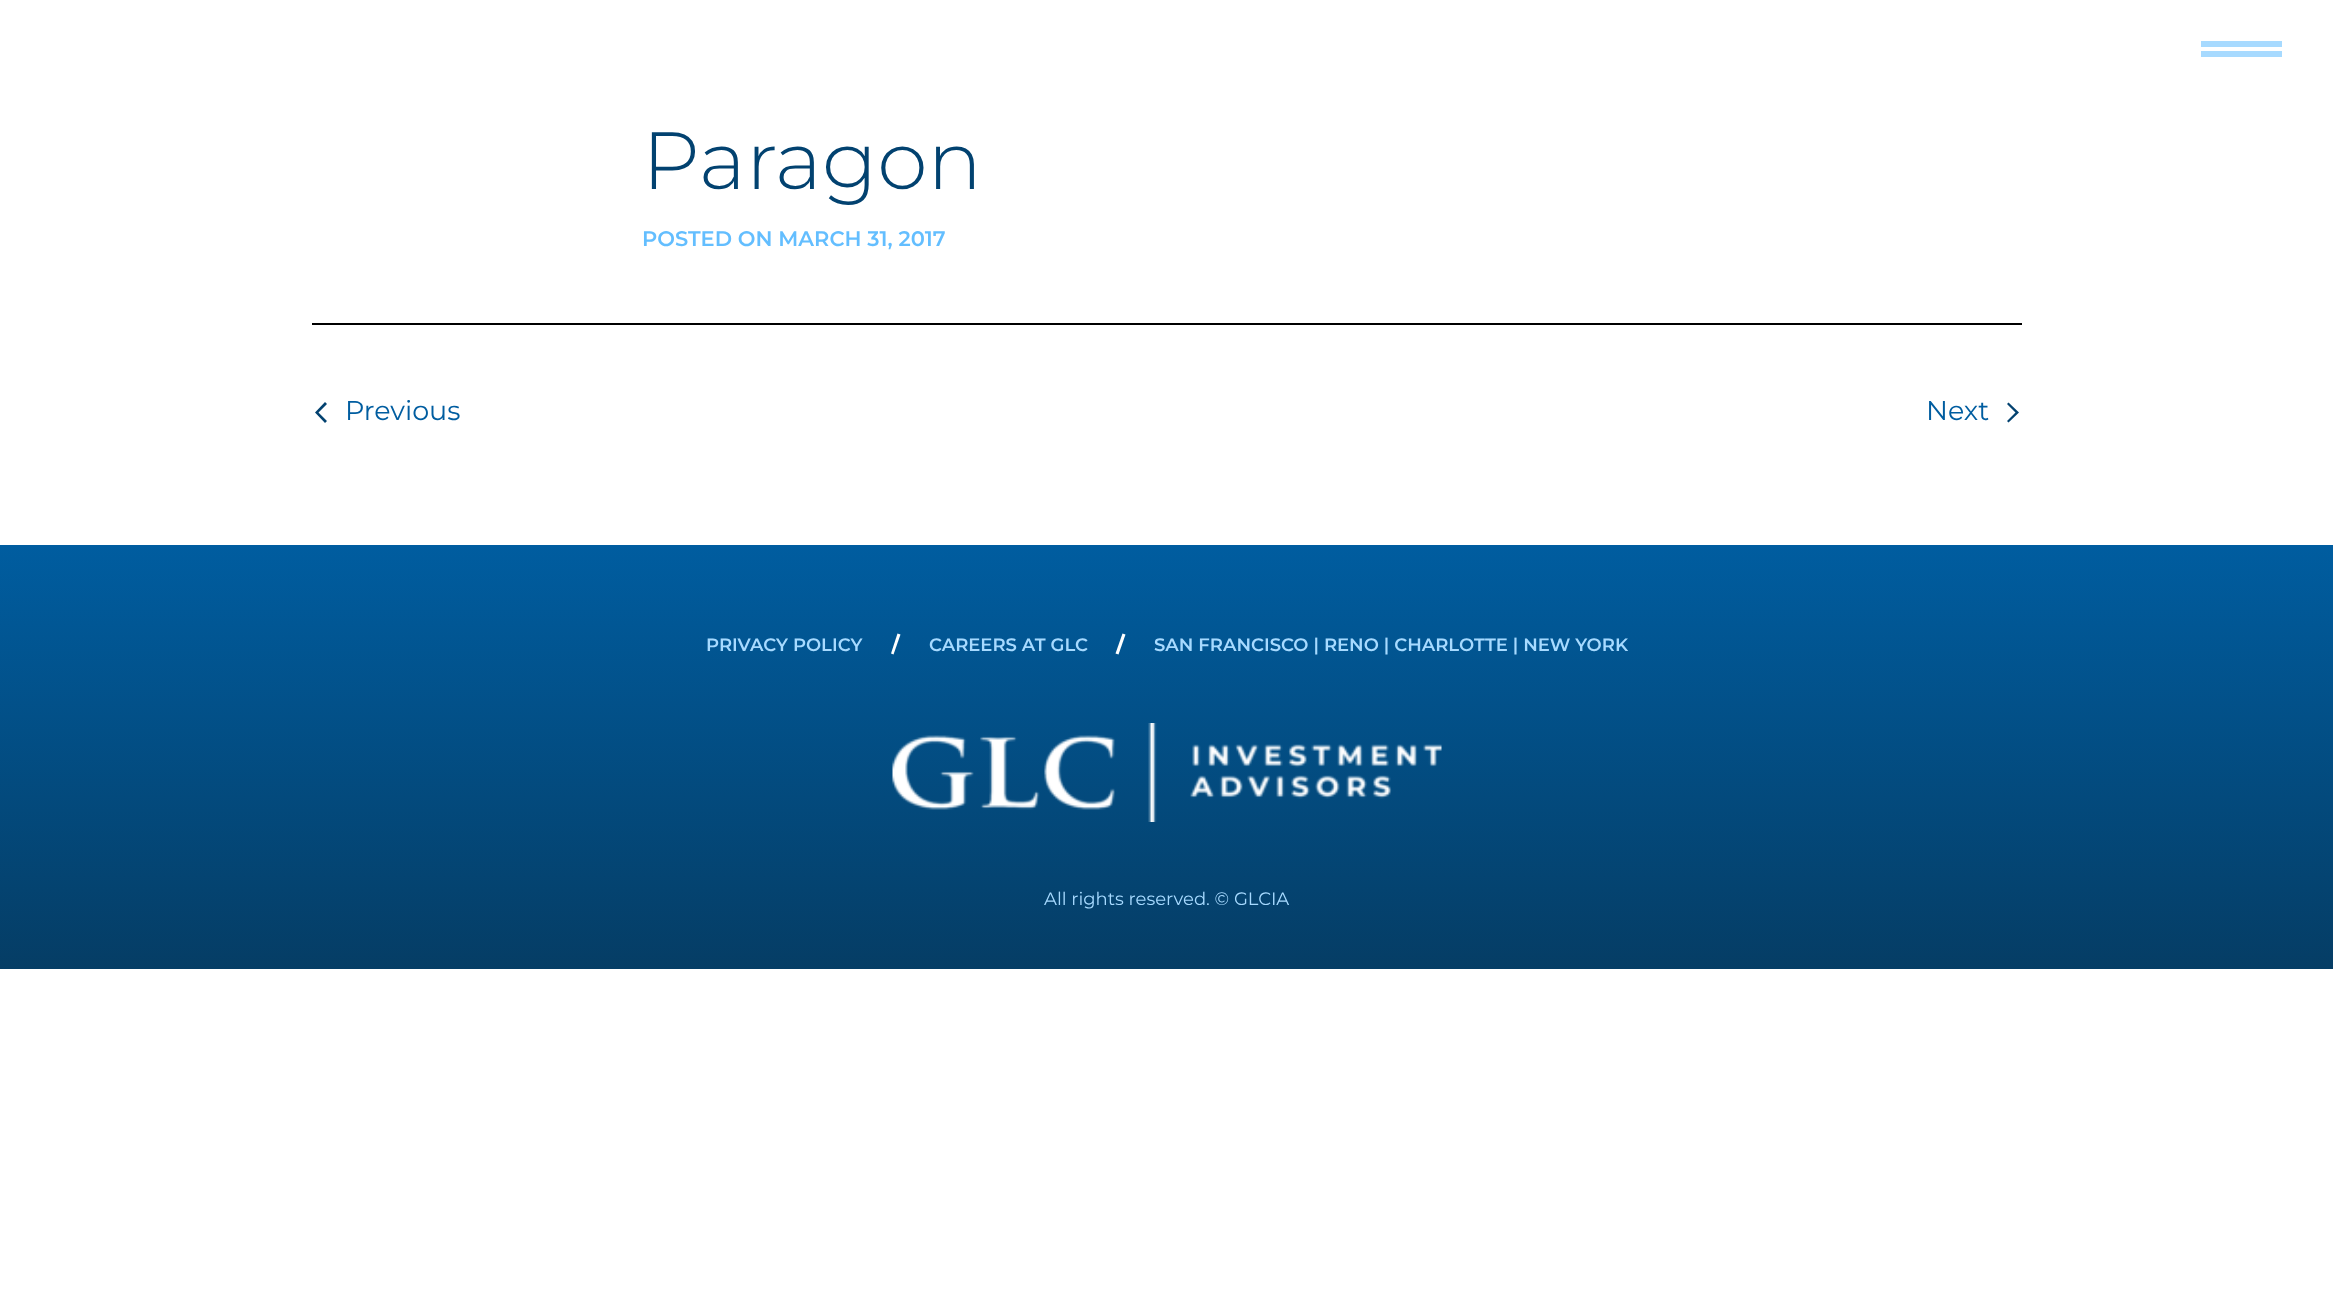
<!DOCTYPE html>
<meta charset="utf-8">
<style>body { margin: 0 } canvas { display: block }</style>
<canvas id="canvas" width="2333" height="1315"></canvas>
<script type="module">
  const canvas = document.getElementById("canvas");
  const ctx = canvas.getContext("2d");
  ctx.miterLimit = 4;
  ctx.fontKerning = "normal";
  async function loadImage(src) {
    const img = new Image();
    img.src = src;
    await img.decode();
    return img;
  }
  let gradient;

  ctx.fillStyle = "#ffffff";
  ctx.fillRect(0, 0, 2333, 1315);
  ctx.fillStyle = "#a7daff";
  ctx.fillRect(2201, 41, 81, 6);
  ctx.fillRect(2201, 51, 81, 6);
  ctx.font = "300 81px Montserrat";
  ctx.fillStyle = "#024270";
  ctx.fillText("Paragon", 642, 189);
  ctx.font = "600 21px Montserrat";
  ctx.fillStyle = "#63beff";
  ctx.fillText("POSTED ON MARCH 31, 2017", 642, 246);
  ctx.fillStyle = "#000000";
  ctx.fillRect(312, 323, 1710, 2);
  ctx.fillStyle = "#034270";
  ctx.beginPath();
  ctx.moveTo(327, 404);
  ctx.lineTo(325, 402);
  ctx.lineTo(315, 412.5);
  ctx.lineTo(325, 423);
  ctx.lineTo(327, 421);
  ctx.lineTo(318.5, 412.5);
  ctx.closePath();
  ctx.fill();
  ctx.font = "27px Montserrat";
  ctx.fillStyle = "#005da0";
  ctx.fillText("Previous", 345, 420);
  ctx.fillText("Next", 1926, 420);
  ctx.fillStyle = "#034270";
  ctx.beginPath();
  ctx.moveTo(2007, 421);
  ctx.lineTo(2008.5, 422.5);
  ctx.lineTo(2019, 412.5);
  ctx.lineTo(2008.5, 402.5);
  ctx.lineTo(2007, 404);
  ctx.lineTo(2015.5, 412.5);
  ctx.closePath();
  ctx.fill();
  gradient = ctx.createLinearGradient(1167, 544, 1167, 969);
  gradient.addColorStop(0, "#005da0");
  gradient.addColorStop(1, "#053d65");
  ctx.fillStyle = gradient;
  ctx.fillRect(0, 545, 2333, 424);
  ctx.font = "600 18px Montserrat";
  ctx.fillStyle = "#a7daff";
  ctx.fillText("PRIVACY POLICY", 706, 651);
  ctx.fillStyle = "#ffffff";
  ctx.beginPath();
  ctx.moveTo(891, 653.5);
  ctx.lineTo(897.5, 633.5);
  ctx.lineTo(900.5, 634.5);
  ctx.lineTo(893.5, 654.5);
  ctx.closePath();
  ctx.fill();
  ctx.fillStyle = "#a7daff";
  ctx.fillText("CAREERS AT GLC", 929, 651);
  ctx.fillStyle = "#ffffff";
  ctx.beginPath();
  ctx.moveTo(1115.5, 653.5);
  ctx.lineTo(1122.5, 633.5);
  ctx.lineTo(1125.5, 634.5);
  ctx.lineTo(1118.5, 654.5);
  ctx.closePath();
  ctx.fill();
  ctx.fillStyle = "#a7daff";
  ctx.fillText("SAN FRANCISCO | RENO | CHARLOTTE | NEW YORK", 1154, 651);
  ctx.drawImage(await loadImage("img1.png"), 892, 723, 550, 99);
  ctx.font = "18px Montserrat";
  ctx.fillText("All rights reserved. © GLCIA", 1044, 905);
</script>
